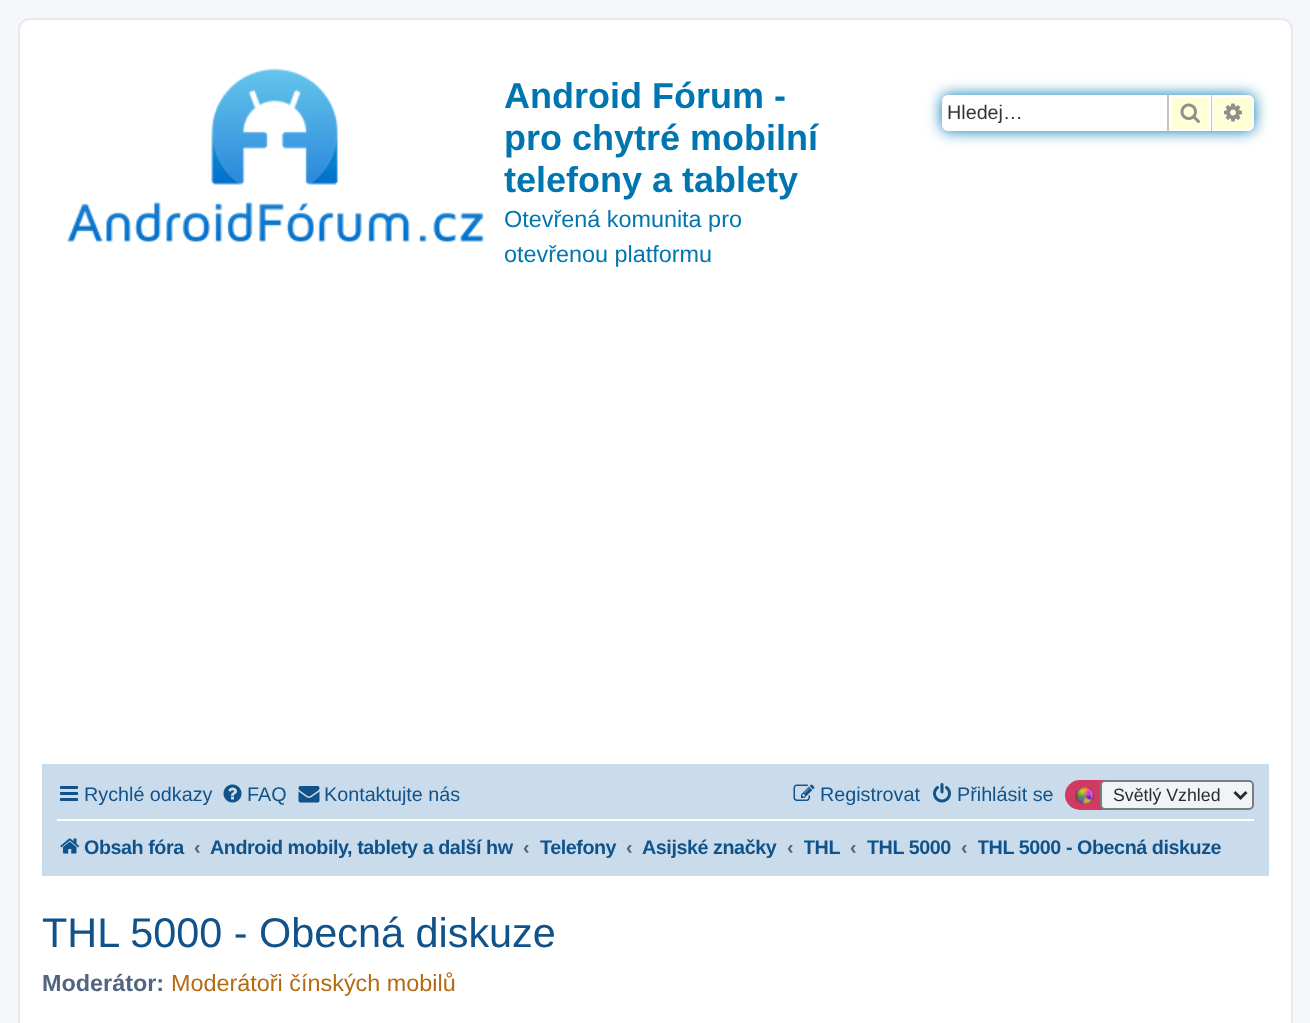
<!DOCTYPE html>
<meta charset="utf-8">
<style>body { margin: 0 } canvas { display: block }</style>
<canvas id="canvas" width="1310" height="1023"></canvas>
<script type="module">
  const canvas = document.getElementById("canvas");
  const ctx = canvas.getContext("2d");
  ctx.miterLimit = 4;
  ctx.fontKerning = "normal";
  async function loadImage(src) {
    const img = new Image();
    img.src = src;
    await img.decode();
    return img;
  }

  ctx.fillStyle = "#f5f7fa";
  ctx.fillRect(0, 0, 1310, 1023);
  ctx.fillStyle = "#ffffff";
  ctx.beginPath();
  ctx.roundRect(19, 19, 1273, 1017, 11);
  ctx.fill();
  ctx.strokeStyle = "#e6e9ed";
  ctx.lineWidth = 2;
  ctx.stroke();
  ctx.drawImage(await loadImage("img1.png"), 67, 68, 417, 174);
  ctx.font = "bold 36px Liberation Sans";
  ctx.fillStyle = "#0076b1";
  ctx.fillText("Android Fórum -", 504, 108);
  ctx.fillText("pro chytré mobilní", 504, 150);
  ctx.fillText("telefony a tablety", 504, 192);
  ctx.font = "23.4px Liberation Sans";
  ctx.fillText("Otevřená komunita pro", 504, 227);
  ctx.fillText("otevřenou platformu", 504, 262);
  ctx.fillStyle = "#0075b0";
  ctx.filter = "blur(7.5px)";
  ctx.beginPath();
  ctx.roundRect(942, 95, 312, 36, 6);
  ctx.fill();
  ctx.filter = "none";
  ctx.fillStyle = "#ffffff";
  ctx.beginPath();
  ctx.roundRect(942, 95, 225, 36, [6, 0, 0, 6]);
  ctx.fill();
  ctx.font = "19.75px Liberation Sans";
  ctx.fillStyle = "#333333";
  ctx.fillText("Hledej…", 947, 119);
  ctx.fillStyle = "#ffffd6";
  ctx.beginPath();
  ctx.rect(1170, 96, 40, 34);
  ctx.fill();
  ctx.strokeStyle = "#ffffff";
  ctx.stroke();
  ctx.fillStyle = "#c7c3bf";
  ctx.fillRect(1211, 95, 1, 36);
  ctx.fillRect(1167, 95, 2, 36);
  ctx.drawImage(await loadImage("img2.png"), 1180, 103, 20, 20);
  ctx.fillStyle = "#ffffd6";
  ctx.beginPath();
  ctx.roundRect(1213, 96, 40, 34, [0, 5, 5, 0]);
  ctx.fill();
  ctx.stroke();
  ctx.drawImage(await loadImage("img3.png"), 1224, 103, 18, 19);
  ctx.fillStyle = "#cadceb";
  ctx.fillRect(42, 764, 1227, 112);
  ctx.drawImage(await loadImage("img4.png"), 60, 786, 18, 15);
  ctx.fillStyle = "#105289";
  ctx.fillText("Rychlé odkazy", 84, 801);
  ctx.drawImage(await loadImage("img5.png"), 223, 784, 19, 19);
  ctx.fillText("FAQ", 247, 801);
  ctx.drawImage(await loadImage("img6.png"), 298, 786, 22, 17);
  ctx.fillText("Kontaktujte nás", 324, 801);
  ctx.drawImage(await loadImage("img7.png"), 793, 784, 22, 17);
  ctx.fillText("Registrovat", 820, 801);
  ctx.drawImage(await loadImage("img8.png"), 933, 783, 18, 20);
  ctx.fillText("Přihlásit se", 957, 801);
  ctx.fillStyle = "#d13a63";
  ctx.beginPath();
  ctx.roundRect(1065, 780, 189, 30, 15);
  ctx.fill();
  ctx.drawImage(await loadImage("img9.png"), 1075, 786, 19, 19);
  ctx.fillStyle = "#f0f4f7";
  ctx.beginPath();
  ctx.roundRect(1101, 781, 152, 28, 4);
  ctx.fill();
  ctx.strokeStyle = "#7a7e81";
  ctx.stroke();
  ctx.beginPath();
  ctx.moveTo(1234.5, 792);
  ctx.lineTo(1240.5, 798);
  ctx.lineTo(1246.5, 792);
  ctx.strokeStyle = "#282c2f";
  ctx.lineWidth = 3;
  ctx.stroke();
  ctx.font = "17.75px Liberation Sans";
  ctx.fillStyle = "#282c2f";
  ctx.fillText("Světlý Vzhled", 1113, 801);
  ctx.fillStyle = "#ffffff";
  ctx.fillRect(57, 819, 1197, 2);
  ctx.drawImage(await loadImage("img10.png"), 60, 838, 20, 16);
  ctx.letterSpacing = "-0.45px";
  ctx.font = "bold 19.75px Liberation Sans";
  ctx.fillStyle = "#105289";
  ctx.fillText("Obsah fóra", 84, 854);
  ctx.letterSpacing = "0px";
  ctx.fillStyle = "#536482";
  ctx.fillText("‹", 194, 854);
  ctx.save();
  ctx.beginPath();
  ctx.rect(210, 825, 303, 44);
  ctx.clip();
  ctx.letterSpacing = "-0.45px";
  ctx.fillStyle = "#105289";
  ctx.fillText("Android mobily, tablety a další hw", 210, 854);
  ctx.restore();
  ctx.fillText("‹", 523, 854);
  ctx.letterSpacing = "-0.45px";
  ctx.fillStyle = "#105289";
  ctx.fillText("Telefony", 540, 854);
  ctx.letterSpacing = "0px";
  ctx.fillStyle = "#536482";
  ctx.fillText("‹", 626, 854);
  ctx.letterSpacing = "-0.45px";
  ctx.fillStyle = "#105289";
  ctx.fillText("Asijské značky", 642, 854);
  ctx.letterSpacing = "0px";
  ctx.fillStyle = "#536482";
  ctx.fillText("‹", 787, 854);
  ctx.save();
  ctx.beginPath();
  ctx.rect(804, 825, 36, 44);
  ctx.clip();
  ctx.letterSpacing = "-0.45px";
  ctx.fillStyle = "#105289";
  ctx.fillText("THL", 803, 854);
  ctx.restore();
  ctx.fillText("‹", 850, 854);
  ctx.letterSpacing = "-0.45px";
  ctx.fillStyle = "#105289";
  ctx.fillText("THL 5000", 867, 854);
  ctx.letterSpacing = "0px";
  ctx.fillStyle = "#536482";
  ctx.fillText("‹", 961, 854);
  ctx.save();
  ctx.beginPath();
  ctx.rect(978, 825, 245, 44);
  ctx.clip();
  ctx.letterSpacing = "-0.45px";
  ctx.fillStyle = "#105289";
  ctx.fillText("THL 5000 - Obecná diskuze", 977, 854);
  ctx.restore();
  ctx.font = "41.4px Liberation Sans";
  ctx.fillStyle = "#105289";
  ctx.fillText("THL 5000 - Obecná diskuze", 42, 947);
  ctx.font = "bold 23.4px Liberation Sans";
  ctx.fillStyle = "#536482";
  ctx.fillText("Moderátor:", 42, 991);
  ctx.font = "23.4px Liberation Sans";
  ctx.fillStyle = "#b36b10";
  ctx.fillText("Moderátoři čínských mobilů", 171, 991);
</script>
